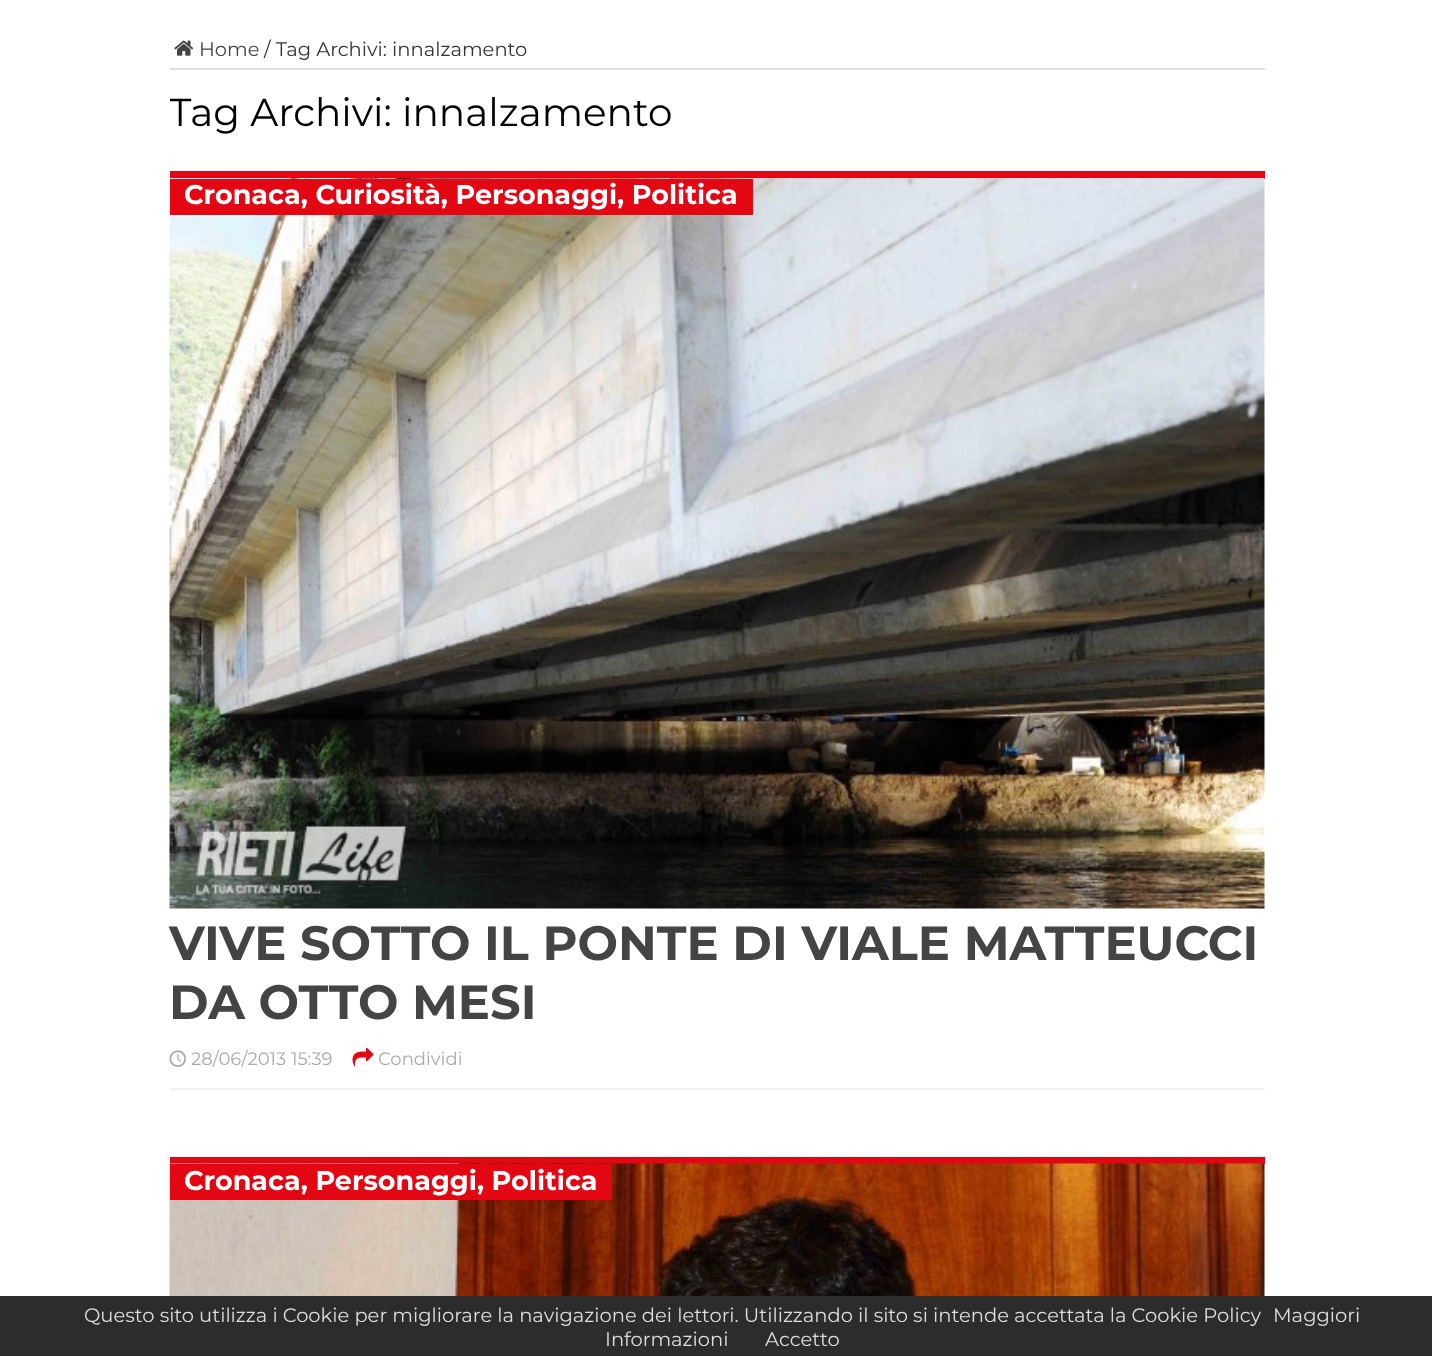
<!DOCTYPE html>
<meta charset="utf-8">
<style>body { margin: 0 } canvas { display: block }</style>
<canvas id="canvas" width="1432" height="1356"></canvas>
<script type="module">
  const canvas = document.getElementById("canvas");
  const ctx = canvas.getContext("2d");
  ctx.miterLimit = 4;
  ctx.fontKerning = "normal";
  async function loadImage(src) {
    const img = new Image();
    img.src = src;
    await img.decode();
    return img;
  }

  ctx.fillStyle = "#ffffff";
  ctx.fillRect(0, 0, 1432, 1356);
  ctx.fillStyle = "#dddddd";
  ctx.fillRect(170, 68, 1095, 2);
  ctx.drawImage(await loadImage("img1.png"), 174, 40, 20, 16);
  ctx.font = "19.5px Montserrat";
  ctx.fillStyle = "#444444";
  ctx.fillText("Home", 199, 56);
  ctx.fillStyle = "#333333";
  ctx.fillText("/ Tag Archivi: innalzamento", 264, 56);
  ctx.save();
  ctx.beginPath();
  ctx.rect(170, 84, 1095, 72);
  ctx.clip();
  ctx.font = "39px Montserrat";
  ctx.fillStyle = "#000000";
  ctx.fillText("Tag Archivi:", 169, 126);
  ctx.restore();
  ctx.font = "39px Montserrat";
  ctx.fillStyle = "#000000";
  ctx.fillText("innalzamento", 402, 126);
  ctx.fillStyle = "#e30613";
  ctx.fillRect(170, 171, 1095, 8);
  ctx.drawImage(await loadImage("img2.png"), 169, 178, 1096, 731);
  ctx.fillRect(170, 179, 583, 36);
  ctx.font = "bold 27px Montserrat";
  ctx.fillStyle = "#ffffff";
  ctx.fillText("Cronaca, Curiosità, Personaggi, Politica", 184, 204);
  ctx.fillStyle = "#f2f2f2";
  ctx.fillRect(170, 1088, 1095, 2);
  ctx.font = "bold 48px Montserrat";
  ctx.fillStyle = "#444444";
  ctx.fillText("VIVE SOTTO IL PONTE DI VIALE MATTEUCCI", 169, 960);
  ctx.fillText("DA OTTO MESI", 169, 1019);
  ctx.drawImage(await loadImage("img3.png"), 169, 1050, 17, 17);
  ctx.font = "18px Montserrat";
  ctx.fillStyle = "#aaaaaa";
  ctx.fillText("28/06/2013 15:39", 191, 1065);
  ctx.drawImage(await loadImage("img4.png"), 352, 1047, 22, 20);
  ctx.fillText("Condividi", 378, 1065);
  ctx.fillStyle = "#e30613";
  ctx.fillRect(170, 1157, 1095, 7);
  ctx.drawImage(await loadImage("img5.png"), 169, 1163, 1096, 133);
  ctx.fillRect(170, 1164, 442, 36);
  ctx.font = "bold 27px Montserrat";
  ctx.fillStyle = "#ffffff";
  ctx.fillText("Cronaca, Personaggi, Politica", 184, 1190);
  ctx.fillStyle = "#2c2c2c";
  ctx.fillRect(0, 1296, 1432, 60);
  ctx.font = "19.5px Montserrat";
  ctx.fillStyle = "#dddddd";
  ctx.fillText("Questo sito utilizza i Cookie per migliorare la navigazione dei lettori. Utilizzando il sito si intende accettata la Cookie Policy", 84, 1322);
  ctx.fillText("Maggiori", 1273, 1322);
  ctx.fillText("Informazioni", 605, 1346);
  ctx.fillText("Accetto", 765, 1346);
</script>
